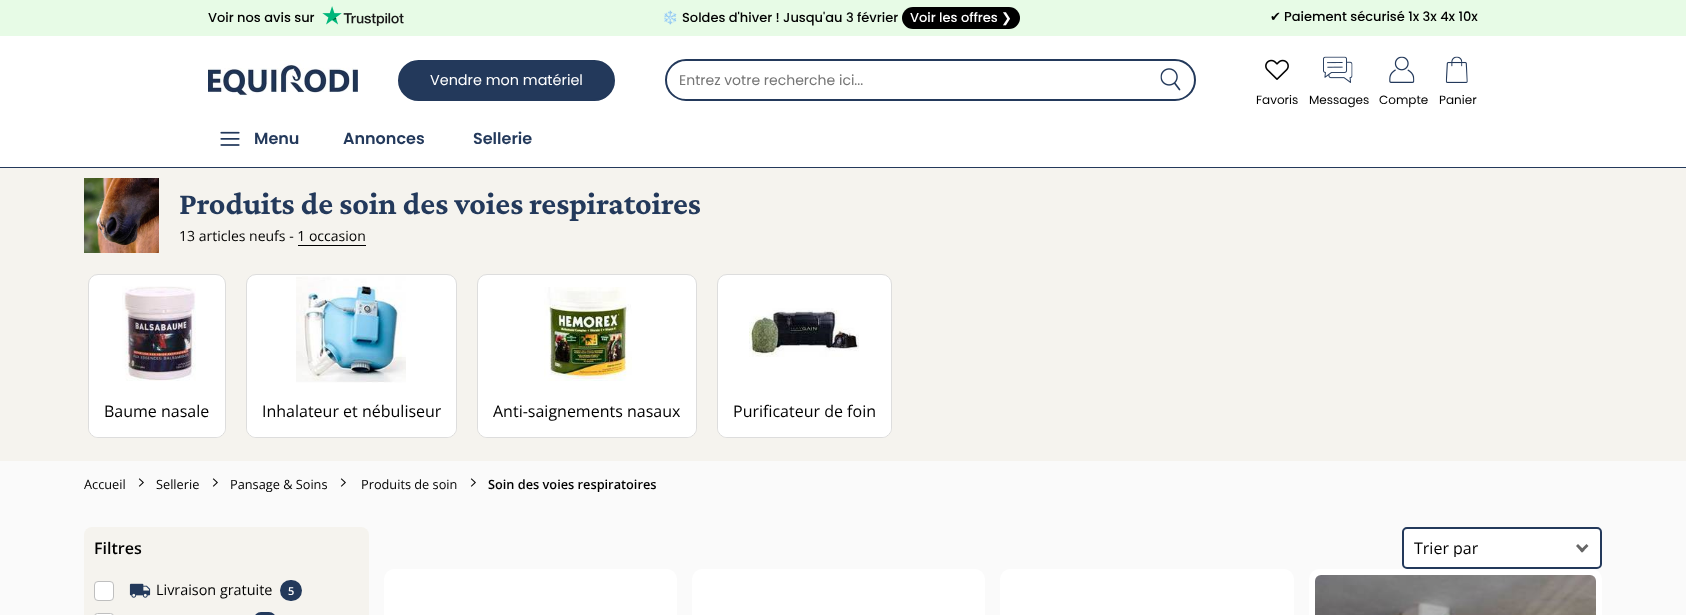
<!DOCTYPE html>
<meta charset="utf-8">
<style>body { margin: 0 } canvas { display: block }</style>
<canvas id="canvas" width="1686" height="615"></canvas>
<script type="module">
  const canvas = document.getElementById("canvas");
  const ctx = canvas.getContext("2d");
  ctx.miterLimit = 4;
  ctx.fontKerning = "normal";
  async function loadImage(src) {
    const img = new Image();
    img.src = src;
    await img.decode();
    return img;
  }

  ctx.fillStyle = "#fafafa";
  ctx.fillRect(0, 0, 1686, 615);
  ctx.fillStyle = "#ffffff";
  ctx.fillRect(0, 36, 1686, 131);
  ctx.fillStyle = "#23395b";
  ctx.fillRect(0, 167, 1686, 1);
  ctx.fillStyle = "#e7fbe6";
  ctx.fillRect(0, 0, 1686, 36);
  ctx.font = "500 13px Poppins";
  ctx.fillStyle = "#000000";
  ctx.fillText("Voir nos avis sur", 208, 22);
  ctx.drawImage(await loadImage("img1.png"), 322, 6, 82, 20);
  ctx.font = "13px Noto Color Emoji";
  ctx.fillText("❄️", 662, 22);
  ctx.font = "500 13px Poppins";
  ctx.fillText("Soldes d'hiver ! Jusqu'au 3 février", 682, 22);
  ctx.beginPath();
  ctx.roundRect(902, 7, 118, 22, 11);
  ctx.fill();
  ctx.fillStyle = "#ffffff";
  ctx.fillText("Voir les offres", 910, 22);
  ctx.font = "13px DejaVu Sans";
  ctx.fillText("❯", 1001, 22);
  ctx.fillStyle = "#000000";
  ctx.fillText("✔", 1270, 21);
  ctx.font = "500 13px Poppins";
  ctx.fillText("Paiement sécurisé 1x 3x 4x 10x", 1284, 21);
  ctx.drawImage(await loadImage("img2.png"), 208, 60, 150, 40);
  ctx.fillStyle = "#23395b";
  ctx.beginPath();
  ctx.roundRect(399, 61, 215, 39, 19.5);
  ctx.fill();
  ctx.strokeStyle = "#23395b";
  ctx.lineWidth = 2;
  ctx.stroke();
  ctx.font = "14.4px Poppins";
  ctx.fillStyle = "#ffffff";
  ctx.fillText("Vendre mon matériel", 430, 85);
  ctx.beginPath();
  ctx.roundRect(666, 60, 529, 40, 20);
  ctx.stroke();
  ctx.font = "14px Poppins";
  ctx.fillStyle = "#757575";
  ctx.fillText("Entrez votre recherche ici...", 679, 85);
  ctx.drawImage(await loadImage("img3.png"), 1160, 68, 21, 23);
  ctx.drawImage(await loadImage("img4.png"), 1265, 59, 24, 21);
  ctx.font = "12px Poppins";
  ctx.fillStyle = "#000000";
  ctx.fillText("Favoris", 1256, 104);
  ctx.drawImage(await loadImage("img5.png"), 1323, 56, 30, 27);
  ctx.fillText("Messages", 1309, 104);
  ctx.drawImage(await loadImage("img6.png"), 1389, 56, 26, 27);
  ctx.fillText("Compte", 1379, 104);
  ctx.drawImage(await loadImage("img7.png"), 1445, 56, 23, 27);
  ctx.fillText("Panier", 1439, 104);
  ctx.drawImage(await loadImage("img8.png"), 220, 131, 20, 15);
  ctx.font = "600 16px Poppins";
  ctx.fillStyle = "#23395b";
  ctx.fillText("Menu", 254, 144);
  ctx.fillText("Annonces", 343, 144);
  ctx.fillText("Sellerie", 473, 144);
  ctx.fillStyle = "#f5f3ee";
  ctx.fillRect(0, 168, 1686, 293);
  ctx.drawImage(await loadImage("img9.png"), 84, 178, 75, 75);
  ctx.font = "bold 32px Crimson Pro";
  ctx.fillStyle = "#23395b";
  ctx.fillText("Produits de soin des voies respiratoires", 179, 214);
  ctx.font = "14px Open Sans";
  ctx.fillStyle = "#000000";
  ctx.fillText("13 articles neufs - 1 occasion", 179, 241);
  ctx.fillRect(298, 245, 68, 1);
  ctx.fillStyle = "#ffffff";
  ctx.beginPath();
  ctx.roundRect(88.5, 274.5, 137, 163, 9.5);
  ctx.fill();
  ctx.strokeStyle = "#dddddd";
  ctx.lineWidth = 1;
  ctx.stroke();
  ctx.drawImage(await loadImage("img10.png"), 122, 286, 74, 95);
  ctx.beginPath();
  ctx.roundRect(89, 385, 136, 52, [0, 0, 9, 9]);
  ctx.fill();
  ctx.font = "16px Open Sans";
  ctx.fillStyle = "#000000";
  ctx.fillText("Baume nasale", 104, 417);
  ctx.fillStyle = "#ffffff";
  ctx.beginPath();
  ctx.roundRect(246.5, 274.5, 210, 163, 9.5);
  ctx.fill();
  ctx.stroke();
  ctx.drawImage(await loadImage("img11.png"), 296, 276, 110, 107);
  ctx.beginPath();
  ctx.roundRect(247, 385, 209, 52, [0, 0, 9, 9]);
  ctx.fill();
  ctx.fillStyle = "#000000";
  ctx.fillText("Inhalateur et nébuliseur", 262, 417);
  ctx.fillStyle = "#ffffff";
  ctx.beginPath();
  ctx.roundRect(477.5, 274.5, 219, 163, 9.5);
  ctx.fill();
  ctx.stroke();
  ctx.drawImage(await loadImage("img12.png"), 544, 287, 88, 94);
  ctx.beginPath();
  ctx.roundRect(478, 385, 218, 52, [0, 0, 9, 9]);
  ctx.fill();
  ctx.fillStyle = "#000000";
  ctx.fillText("Anti-saignements nasaux", 493, 417);
  ctx.fillStyle = "#ffffff";
  ctx.beginPath();
  ctx.roundRect(717.5, 274.5, 174, 163, 9.5);
  ctx.fill();
  ctx.stroke();
  ctx.drawImage(await loadImage("img13.png"), 749, 308, 110, 49);
  ctx.beginPath();
  ctx.roundRect(718, 385, 173, 52, [0, 0, 9, 9]);
  ctx.fill();
  ctx.fillStyle = "#000000";
  ctx.fillText("Purificateur de foin", 733, 417);
  ctx.font = "12.75px Open Sans";
  ctx.fillText("Accueil", 84, 489);
  ctx.drawImage(await loadImage("img14.png"), 138, 478, 6, 9);
  ctx.fillText("Sellerie", 156, 489);
  ctx.drawImage(await loadImage("img14.png"), 212, 478, 6, 9);
  ctx.fillText("Pansage & Soins", 230, 489);
  ctx.drawImage(await loadImage("img14.png"), 340, 478, 6, 9);
  ctx.fillText("Produits de soin", 361, 489);
  ctx.drawImage(await loadImage("img14.png"), 470, 478, 6, 9);
  ctx.font = "600 12.75px Open Sans";
  ctx.fillText("Soin des voies respiratoires", 488, 489);
  ctx.fillStyle = "#f5f3ee";
  ctx.beginPath();
  ctx.roundRect(84, 527, 285, 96, 8);
  ctx.fill();
  ctx.font = "600 16px Open Sans";
  ctx.fillStyle = "#000000";
  ctx.fillText("Filtres", 94, 554);
  ctx.fillStyle = "#ffffff";
  ctx.beginPath();
  ctx.roundRect(94.5, 581.5, 19, 19, 3.5);
  ctx.fill();
  ctx.strokeStyle = "#bfbfbf";
  ctx.stroke();
  ctx.drawImage(await loadImage("img15.png"), 129, 583, 22, 15);
  ctx.font = "14.4px Open Sans";
  ctx.fillStyle = "#000000";
  ctx.fillText("Livraison gratuite", 156, 595);
  ctx.fillStyle = "#23395b";
  ctx.beginPath();
  ctx.roundRect(280, 580, 22, 21, 10.5);
  ctx.fill();
  ctx.font = "600 11px Open Sans";
  ctx.fillStyle = "#ffffff";
  ctx.fillText("5", 288, 595);
  ctx.beginPath();
  ctx.roundRect(94.5, 613.5, 19, 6, 3.5);
  ctx.fill();
  ctx.stroke();
  ctx.fillStyle = "#23395b";
  ctx.beginPath();
  ctx.roundRect(254, 612, 22, 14, 10.5);
  ctx.fill();
  ctx.fillStyle = "#ffffff";
  ctx.beginPath();
  ctx.roundRect(1403, 528, 198, 40, 4);
  ctx.fill();
  ctx.strokeStyle = "#23395b";
  ctx.lineWidth = 2;
  ctx.stroke();
  ctx.save();
  ctx.beginPath();
  ctx.rect(1414, 539, 176, 18);
  ctx.clip();
  ctx.font = "16px Open Sans";
  ctx.fillStyle = "#000000";
  ctx.fillText("Trier par", 1414, 554);
  ctx.restore();
  ctx.fillStyle = "#666666";
  ctx.beginPath();
  ctx.moveTo(1586.5, 544);
  ctx.lineTo(1588.5, 546);
  ctx.lineTo(1582, 552.5);
  ctx.lineTo(1580, 550.5);
  ctx.closePath();
  ctx.fill();
  ctx.beginPath();
  ctx.moveTo(1578, 544);
  ctx.lineTo(1584.5, 550.5);
  ctx.lineTo(1582, 552.5);
  ctx.lineTo(1576, 546);
  ctx.closePath();
  ctx.fill();
  ctx.fillStyle = "#ffffff";
  ctx.beginPath();
  ctx.roundRect(384, 569, 293, 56, 10);
  ctx.fill();
  ctx.beginPath();
  ctx.roundRect(692, 569, 293, 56, 10);
  ctx.fill();
  ctx.beginPath();
  ctx.roundRect(1000, 569, 294, 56, 10);
  ctx.fill();
  ctx.beginPath();
  ctx.roundRect(1309, 569, 293, 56, 10);
  ctx.fill();
  ctx.drawImage(await loadImage("img16.png"), 1315, 575, 281, 40);
</script>
